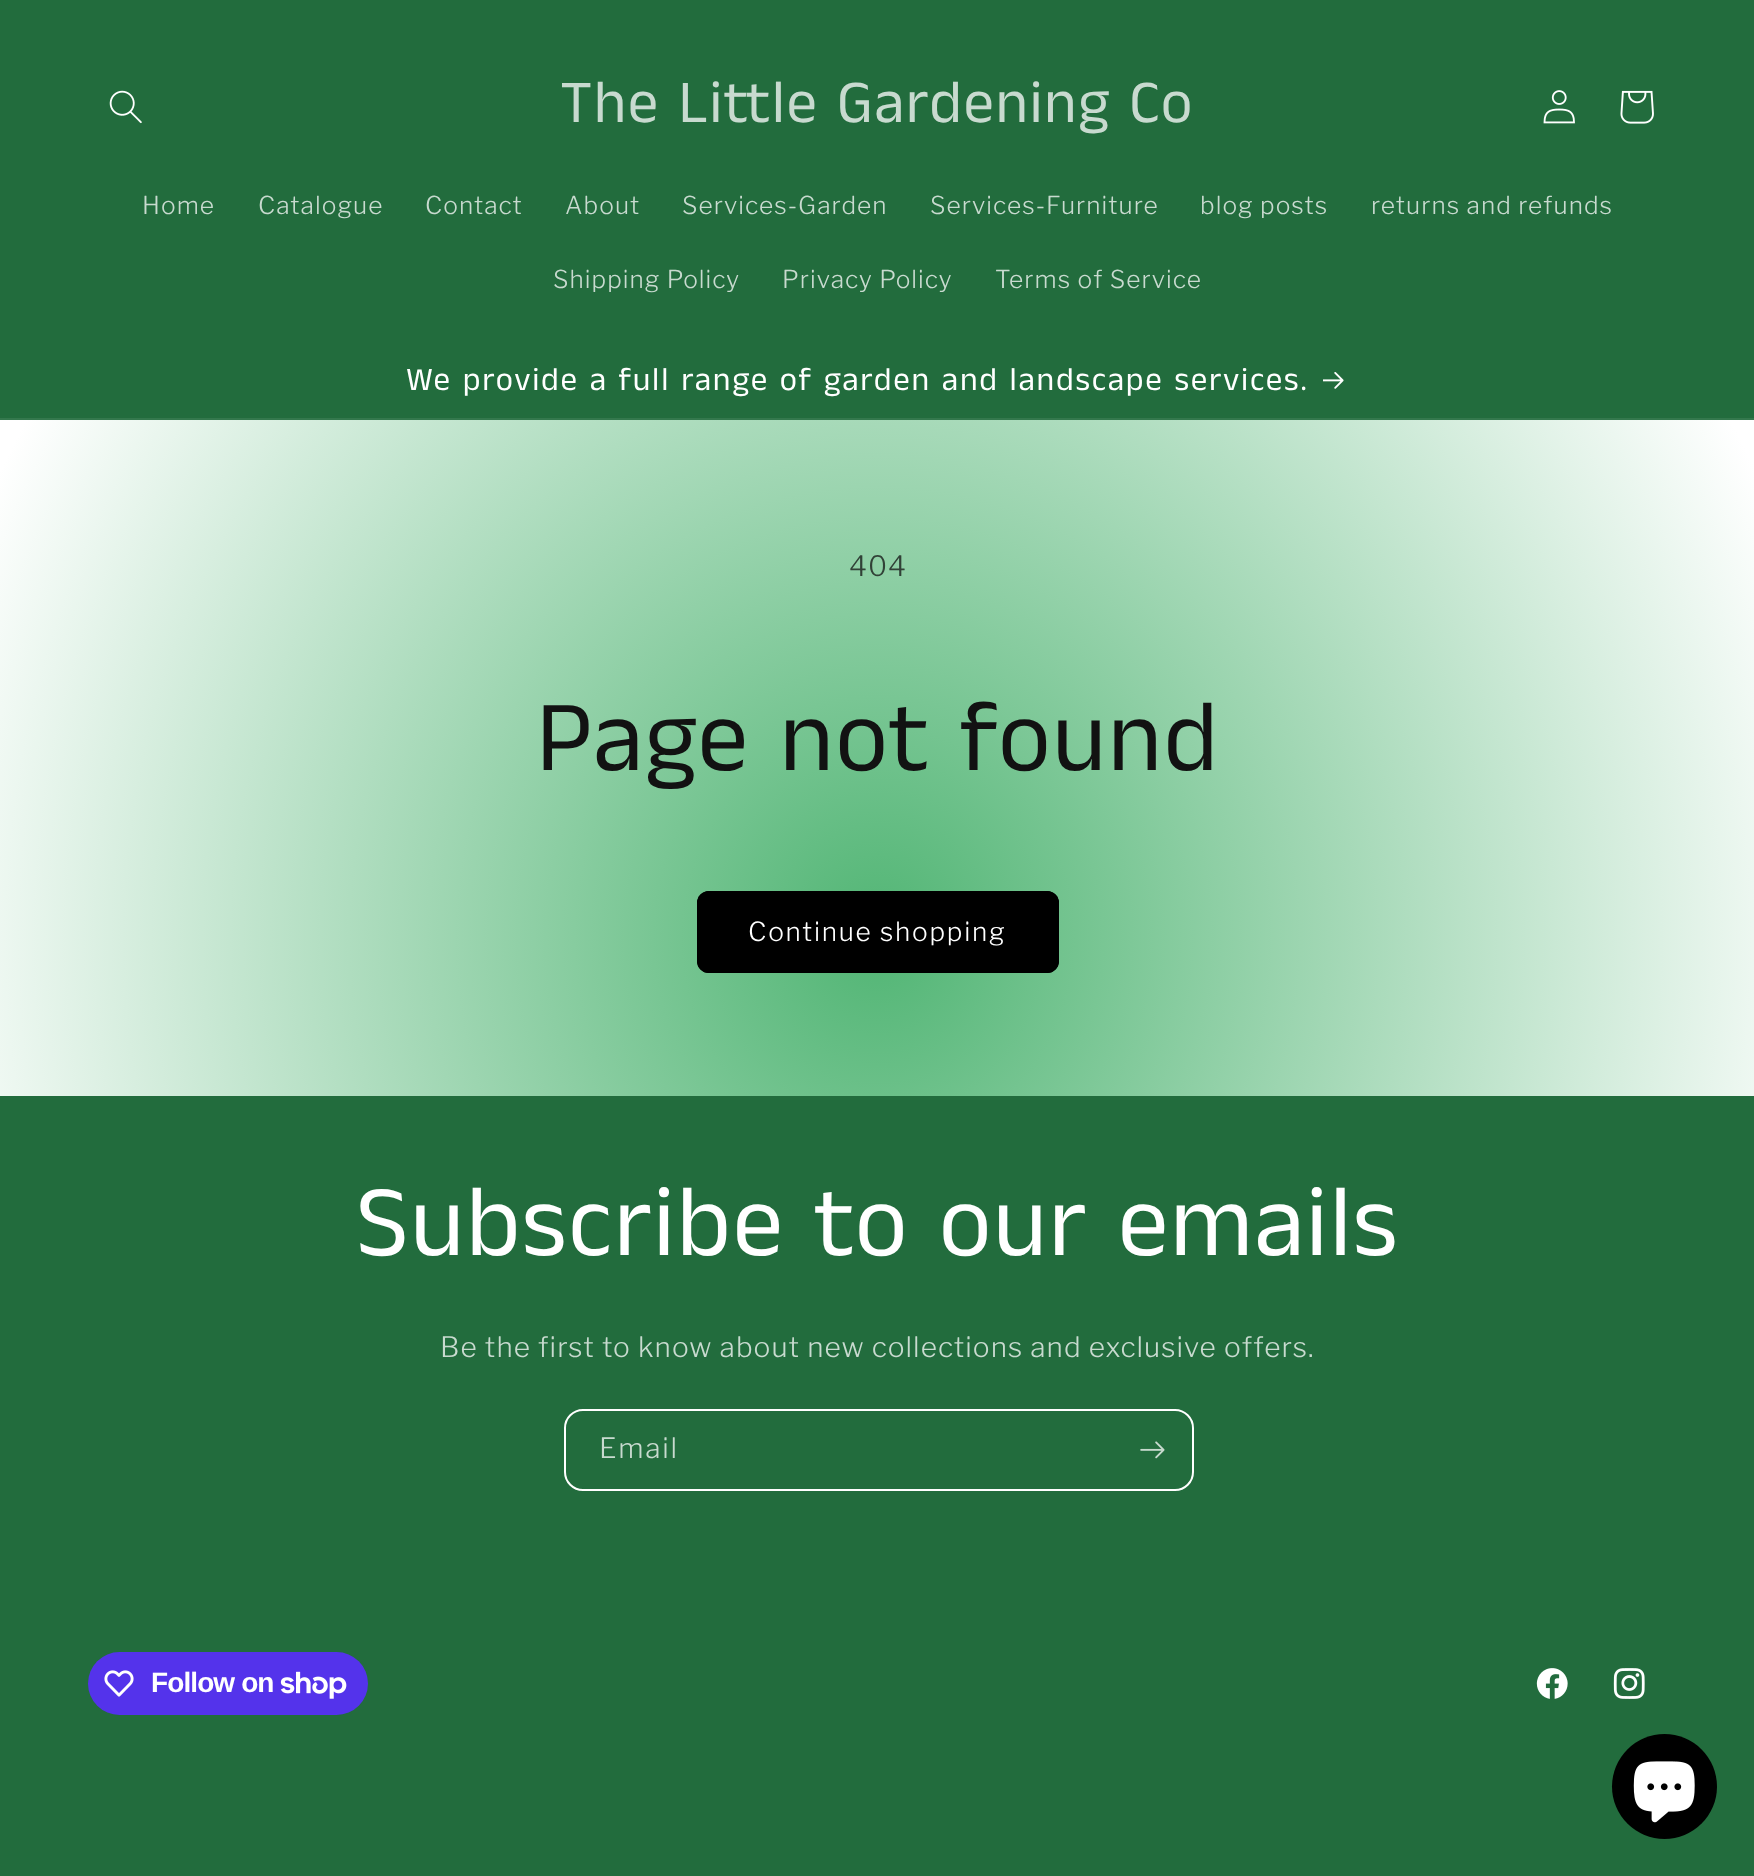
<!DOCTYPE html>
<meta charset="utf-8">
<style>body { margin: 0 } canvas { display: block }</style>
<canvas id="canvas" width="1754" height="1876"></canvas>
<script type="module">
  const canvas = document.getElementById("canvas");
  const ctx = canvas.getContext("2d");
  ctx.miterLimit = 4;
  ctx.fontKerning = "normal";
  async function loadImage(src) {
    const img = new Image();
    img.src = src;
    await img.decode();
    return img;
  }
  let gradient;

  ctx.fillStyle = "#ffffff";
  ctx.fillRect(0, 0, 1754, 1876);
  gradient = ctx.createRadialGradient(878, 877.21, 0, 878, 877.21, 1241);
  gradient.addColorStop(0, "#51b574");
  gradient.addColorStop(0.79, "#ffffff");
  gradient.addColorStop(0.97, "#ffffff");
  ctx.fillStyle = gradient;
  ctx.beginPath();
  ctx.rect(0, 420, 1754, 676);
  ctx.save();
  ctx.clip();
  ctx.scale(1, 1327 / 1241);
  ctx.fillRect(0, 0, 1754, 1755);
  ctx.restore();
  ctx.fillStyle = "#226c3d";
  ctx.fillRect(0, 0, 1754, 418);
  ctx.drawImage(await loadImage("img1.png"), 109, 90, 33, 34);
  ctx.letterSpacing = "1.5px";
  ctx.font = "60.9px Anek Tamil";
  ctx.fillStyle = "#c8dacf";
  ctx.fillText("The Little Gardening Co", 560, 122);
  ctx.drawImage(await loadImage("img2.png"), 1543, 90, 32, 34);
  ctx.drawImage(await loadImage("img3.png"), 1620, 90, 34, 34);
  ctx.letterSpacing = "1.05px";
  ctx.font = "300 24.5px Libre Franklin";
  ctx.fillText("Home", 142, 214);
  ctx.fillText("Catalogue", 258, 214);
  ctx.fillText("Contact", 425, 214);
  ctx.fillText("About", 565, 214);
  ctx.fillText("Services-Garden", 682, 214);
  ctx.fillText("Services-Furniture", 930, 214);
  ctx.fillText("blog posts", 1200, 214);
  ctx.fillText("returns and refunds", 1371, 214);
  ctx.fillText("Shipping Policy", 553, 288);
  ctx.fillText("Privacy Policy", 782, 288);
  ctx.fillText("Terms of Service", 995, 288);
  ctx.fillStyle = "#34784d";
  ctx.fillRect(0, 418, 1754, 2);
  ctx.letterSpacing = "1.75px";
  ctx.font = "33px Anek Tamil";
  ctx.fillStyle = "#ffffff";
  ctx.fillText("We provide a full range of garden and landscape services.", 406, 390);
  ctx.drawImage(await loadImage("img4.png"), 1323, 372, 21, 17);
  ctx.letterSpacing = "1.05px";
  ctx.font = "300 28px Libre Franklin";
  ctx.fillStyle = "#314137";
  ctx.fillText("404", 849, 576);
  ctx.letterSpacing = "1.5px";
  ctx.font = "101.5px Anek Tamil";
  ctx.fillStyle = "#121212";
  ctx.fillText("Page not found", 536, 770);
  ctx.fillStyle = "#000000";
  ctx.beginPath();
  ctx.roundRect(697, 891, 362, 82, 12);
  ctx.fill();
  ctx.beginPath();
  ctx.roundRect(698, 892, 360, 80, 11);
  ctx.strokeStyle = "#000000";
  ctx.lineWidth = 2;
  ctx.stroke();
  ctx.letterSpacing = "1.75px";
  ctx.font = "300 26.25px Libre Franklin";
  ctx.fillStyle = "#ffffff";
  ctx.fillText("Continue shopping", 748, 941);
  ctx.fillStyle = "#226c3d";
  ctx.fillRect(0, 1096, 1754, 780);
  ctx.letterSpacing = "1.5px";
  ctx.font = "101.5px Anek Tamil";
  ctx.fillStyle = "#ffffff";
  ctx.fillText("Subscribe to our emails", 356, 1255);
  ctx.letterSpacing = "1.05px";
  ctx.font = "300 28px Libre Franklin";
  ctx.fillStyle = "#c8dacf";
  ctx.fillText("Be the first to know about new collections and exclusive offers.", 440, 1357);
  ctx.beginPath();
  ctx.roundRect(565, 1410, 628, 80, 18);
  ctx.strokeStyle = "#ffffff";
  ctx.stroke();
  ctx.letterSpacing = "1.75px";
  ctx.fillText("Email", 599, 1458);
  ctx.drawImage(await loadImage("img5.png"), 1140, 1441, 25, 18);
  ctx.fillStyle = "#5433eb";
  ctx.beginPath();
  ctx.roundRect(88, 1652, 280, 63, 31.5);
  ctx.fill();
  ctx.drawImage(await loadImage("img6.png"), 104, 1670, 30, 27);
  ctx.letterSpacing = "-0.9px";
  ctx.font = "bold 28px Liberation Sans";
  ctx.fillStyle = "#ffffff";
  ctx.fillText("Follow on", 151, 1692);
  ctx.drawImage(await loadImage("img7.png"), 280, 1671, 67, 28);
  ctx.drawImage(await loadImage("img8.png"), 1536, 1668, 32, 31);
  ctx.drawImage(await loadImage("img9.png"), 1613, 1668, 32, 31);
  ctx.fillStyle = "#000000";
  ctx.beginPath();
  ctx.arc(1664.5, 1786.5, 52.5, 0, Math.PI * 2);
  ctx.fill();
  ctx.drawImage(await loadImage("img10.png"), 1633, 1761, 62, 62);
</script>
